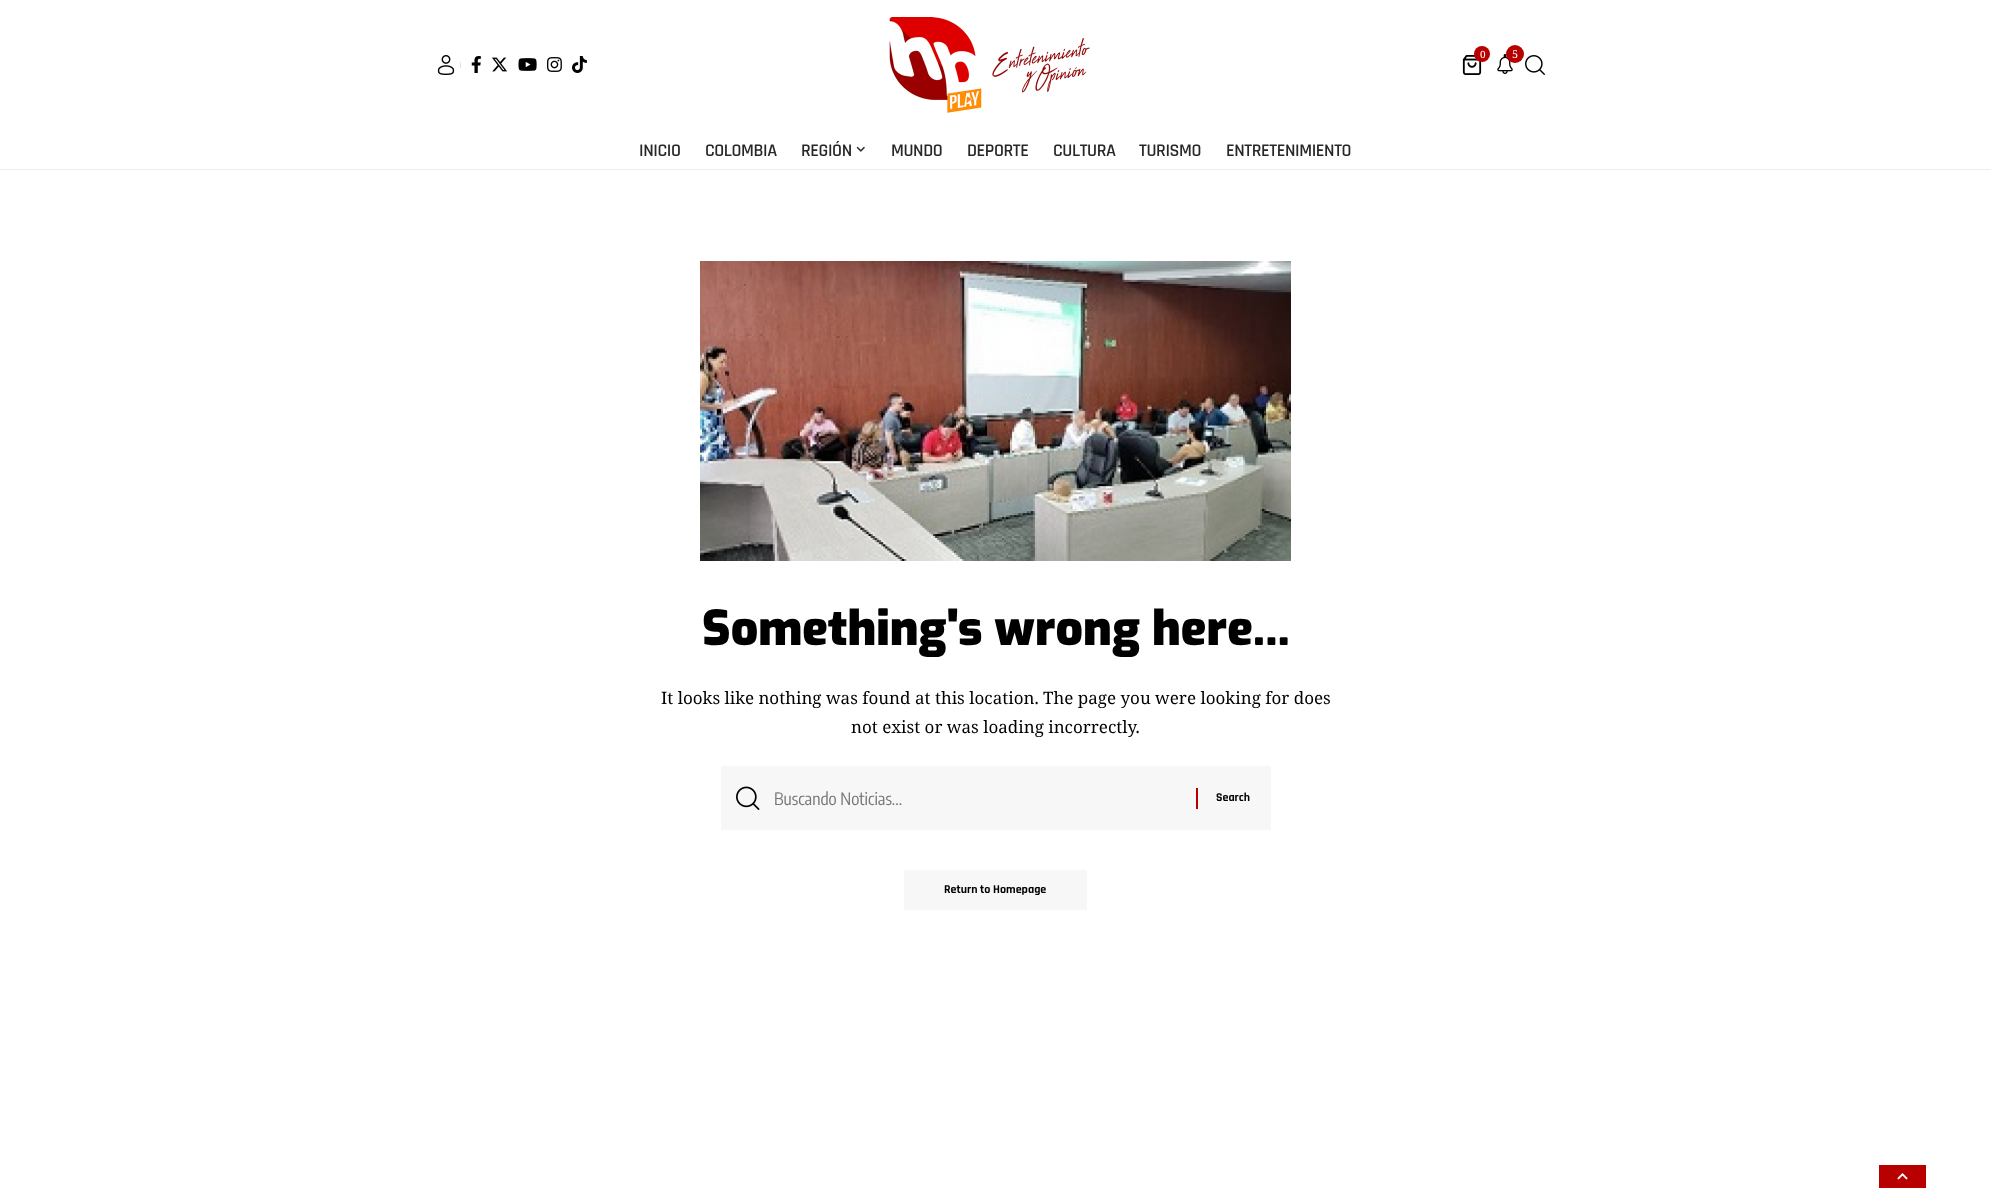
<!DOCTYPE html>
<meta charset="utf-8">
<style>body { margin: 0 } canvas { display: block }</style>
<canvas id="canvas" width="1991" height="1188"></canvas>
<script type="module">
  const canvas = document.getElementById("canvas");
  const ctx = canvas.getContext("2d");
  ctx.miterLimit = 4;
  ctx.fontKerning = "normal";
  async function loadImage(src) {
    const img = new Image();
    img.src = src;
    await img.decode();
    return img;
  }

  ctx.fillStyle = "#ffffff";
  ctx.fillRect(0, 0, 1991, 1188);
  ctx.drawImage(await loadImage("img1.png"), 437, 55, 18, 20);
  ctx.fillStyle = "#e4e4e4";
  ctx.fillRect(460, 62, 1, 6);
  ctx.drawImage(await loadImage("img2.png"), 471, 56, 10, 17);
  ctx.drawImage(await loadImage("img3.png"), 492, 57, 15, 15);
  ctx.drawImage(await loadImage("img4.png"), 518, 58, 19, 13);
  ctx.drawImage(await loadImage("img5.png"), 547, 57, 15, 15);
  ctx.drawImage(await loadImage("img6.png"), 572, 56, 15, 17);
  ctx.drawImage(await loadImage("img7.png"), 889, 17, 201, 96);
  ctx.drawImage(await loadImage("img8.png"), 1462, 55, 20, 20);
  ctx.fillStyle = "#b80000";
  ctx.beginPath();
  ctx.arc(1482, 54, 8, 0, Math.PI * 2);
  ctx.fill();
  ctx.font = "10px Noto Serif";
  ctx.fillStyle = "#ffffff";
  ctx.fillText("0", 1480, 58);
  ctx.drawImage(await loadImage("img9.png"), 1497, 54, 16, 20);
  ctx.fillStyle = "#b80000";
  ctx.beginPath();
  ctx.arc(1515, 54, 9, 0, Math.PI * 2);
  ctx.fill();
  ctx.font = "11px Noto Serif";
  ctx.fillStyle = "#ffffff";
  ctx.fillText("5", 1512, 58);
  ctx.drawImage(await loadImage("img10.png"), 1525, 55, 20, 20);
  ctx.letterSpacing = "-0.4px";
  ctx.font = "600 18px Rajdhani";
  ctx.fillStyle = "#282828";
  ctx.fillText("INICIO", 639, 156);
  ctx.fillText("COLOMBIA", 705, 156);
  ctx.fillText("REGIÓN", 801, 156);
  ctx.drawImage(await loadImage("img11.png"), 856, 146, 9, 6);
  ctx.fillText("MUNDO", 891, 156);
  ctx.fillText("DEPORTE", 967, 156);
  ctx.fillText("CULTURA", 1053, 156);
  ctx.fillText("TURISMO", 1139, 156);
  ctx.fillText("ENTRETENIMIENTO", 1226, 156);
  ctx.fillStyle = "#ededed";
  ctx.fillRect(0, 169, 1991, 1);
  ctx.drawImage(await loadImage("img12.png"), 700, 261, 591, 300);
  ctx.letterSpacing = "0px";
  ctx.font = "900 48px Exo";
  ctx.fillStyle = "#000000";
  ctx.fillText("Something's wrong here...", 702, 645);
  ctx.font = "17px Noto Serif";
  ctx.fillText("It looks like nothing was found at this location. The page you were looking for does", 661, 704);
  ctx.fillText("not exist or was loading incorrectly.", 851, 733);
  ctx.fillStyle = "#f7f7f7";
  ctx.fillRect(721, 766, 550, 64);
  ctx.drawImage(await loadImage("img13.png"), 736, 786, 24, 24);
  ctx.font = "17px Encode Sans Condensed";
  ctx.fillStyle = "#757575";
  ctx.fillText("Buscando Noticias...", 774, 805);
  ctx.fillStyle = "#b80000";
  ctx.fillRect(1196, 788, 2, 21);
  ctx.font = "bold 12px Rajdhani";
  ctx.fillStyle = "#000000";
  ctx.fillText("Search", 1216, 801);
  ctx.fillStyle = "#f7f7f7";
  ctx.fillRect(904, 870, 183, 40);
  ctx.fillStyle = "#000000";
  ctx.fillText("Return to Homepage", 944, 893);
  ctx.fillStyle = "#b80000";
  ctx.fillRect(1879, 1165, 47, 23);
  ctx.drawImage(await loadImage("img14.png"), 1897, 1173, 11, 7);
</script>
